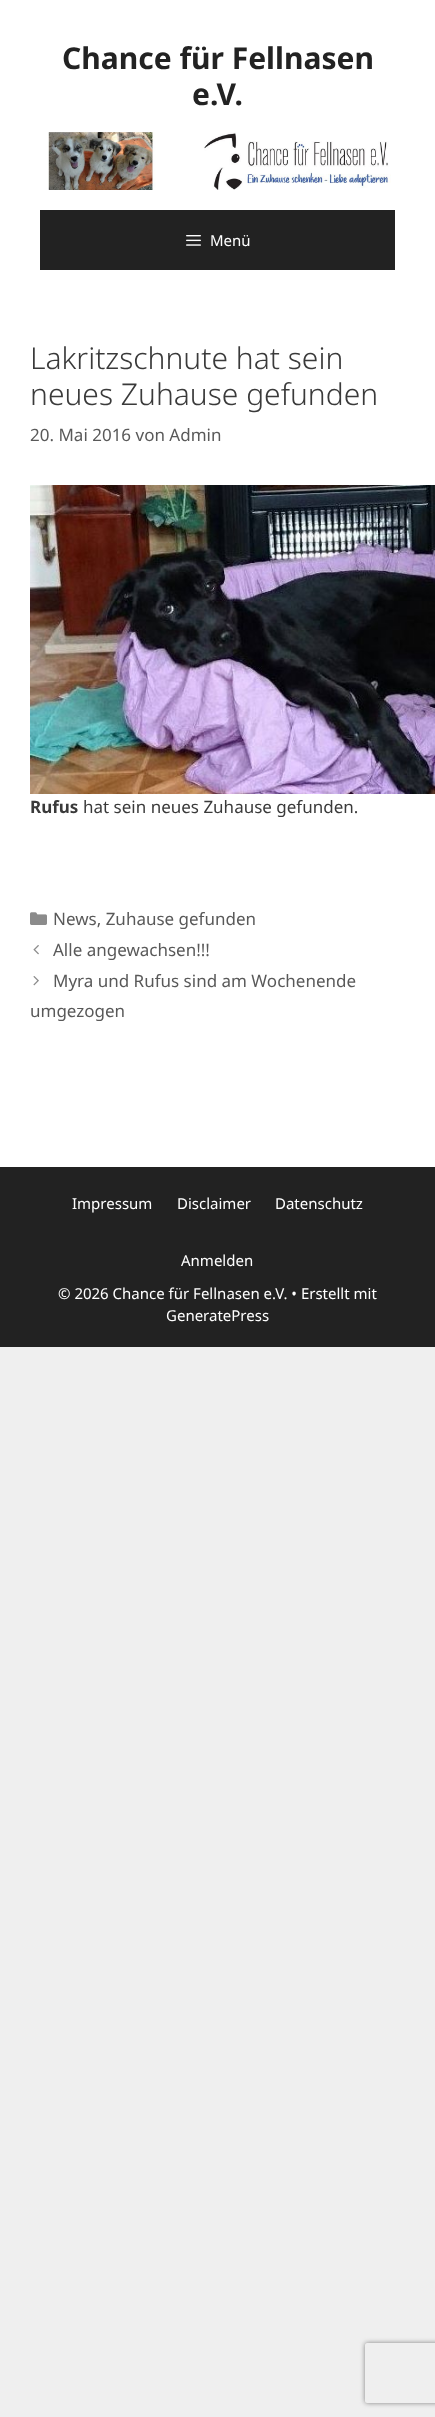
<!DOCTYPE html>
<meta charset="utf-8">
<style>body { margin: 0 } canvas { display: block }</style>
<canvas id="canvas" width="435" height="2417"></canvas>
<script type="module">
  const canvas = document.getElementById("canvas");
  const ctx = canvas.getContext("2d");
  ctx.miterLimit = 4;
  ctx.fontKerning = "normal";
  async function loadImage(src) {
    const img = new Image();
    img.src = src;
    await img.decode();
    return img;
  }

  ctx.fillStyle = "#efefef";
  ctx.fillRect(0, 0, 435, 2417);
  ctx.fillStyle = "#ffffff";
  ctx.fillRect(0, 0, 435, 1167);
  ctx.font = "bold 30px Noto Sans";
  ctx.fillStyle = "#222222";
  ctx.fillText("Chance für Fellnasen", 62, 69);
  ctx.fillText("e.V.", 192, 105);
  ctx.drawImage(await loadImage("img1.png"), 48, 132, 343, 58);
  ctx.fillRect(40, 210, 355, 60);
  ctx.drawImage(await loadImage("img2.png"), 186, 235, 15, 11);
  ctx.font = "15px Noto Sans";
  ctx.fillStyle = "#ffffff";
  ctx.fillText("Menü", 210, 246);
  ctx.font = "300 30px Noto Sans";
  ctx.fillStyle = "#3a3a3a";
  ctx.fillText("Lakritzschnute hat sein", 30, 369);
  ctx.fillText("neues Zuhause gefunden", 30, 405);
  ctx.font = "17px Noto Sans";
  ctx.fillStyle = "#595959";
  ctx.fillText("20. Mai 2016 von Admin", 30, 441);
  ctx.drawImage(await loadImage("img3.png"), 30, 485, 405, 309);
  ctx.font = "bold 17px Noto Sans";
  ctx.fillStyle = "#3a3a3a";
  ctx.fillText("Rufus", 30, 813);
  ctx.font = "17px Noto Sans";
  ctx.fillText("hat sein neues Zuhause gefunden.", 83, 813);
  ctx.drawImage(await loadImage("img4.png"), 30, 912, 17, 13);
  ctx.fillStyle = "#595959";
  ctx.fillText("News, Zuhause gefunden", 53, 925);
  ctx.drawImage(await loadImage("img5.png"), 33, 945, 6, 10);
  ctx.fillText("Alle angewachsen!!!", 53, 956);
  ctx.drawImage(await loadImage("img6.png"), 33, 976, 6, 10);
  ctx.fillText("Myra und Rufus sind am Wochenende", 53, 987);
  ctx.fillText("umgezogen", 30, 1017);
  ctx.fillStyle = "#222222";
  ctx.fillRect(0, 1167, 435, 180);
  ctx.font = "15px Noto Sans";
  ctx.fillStyle = "#ffffff";
  ctx.fillText("Impressum", 72, 1209);
  ctx.fillText("Disclaimer", 177, 1209);
  ctx.fillText("Datenschutz", 275, 1209);
  ctx.fillText("Anmelden", 181, 1266);
  ctx.fillText("© 2026 Chance für Fellnasen e.V. • Erstellt mit", 58, 1299);
  ctx.fillText("GeneratePress", 166, 1321);
  ctx.save();
  ctx.beginPath();
  ctx.moveTo(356, 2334);
  ctx.lineTo(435, 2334);
  ctx.lineTo(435, 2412);
  ctx.lineTo(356, 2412);
  ctx.closePath();
  ctx.moveTo(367, 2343);
  ctx.lineTo(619, 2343);
  ctx.bezierCurveTo(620, 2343, 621, 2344, 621, 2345);
  ctx.lineTo(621, 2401);
  ctx.bezierCurveTo(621, 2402, 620, 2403, 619, 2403);
  ctx.lineTo(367, 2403);
  ctx.bezierCurveTo(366, 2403, 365, 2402, 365, 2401);
  ctx.lineTo(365, 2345);
  ctx.bezierCurveTo(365, 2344, 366, 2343, 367, 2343);
  ctx.closePath();
  ctx.clip("evenodd");
  ctx.fillStyle = "#808080";
  ctx.filter = "blur(2.5px)";
  ctx.beginPath();
  ctx.roundRect(365, 2343, 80, 60, 2);
  ctx.fill();
  ctx.filter = "none";
  ctx.restore();
</script>
